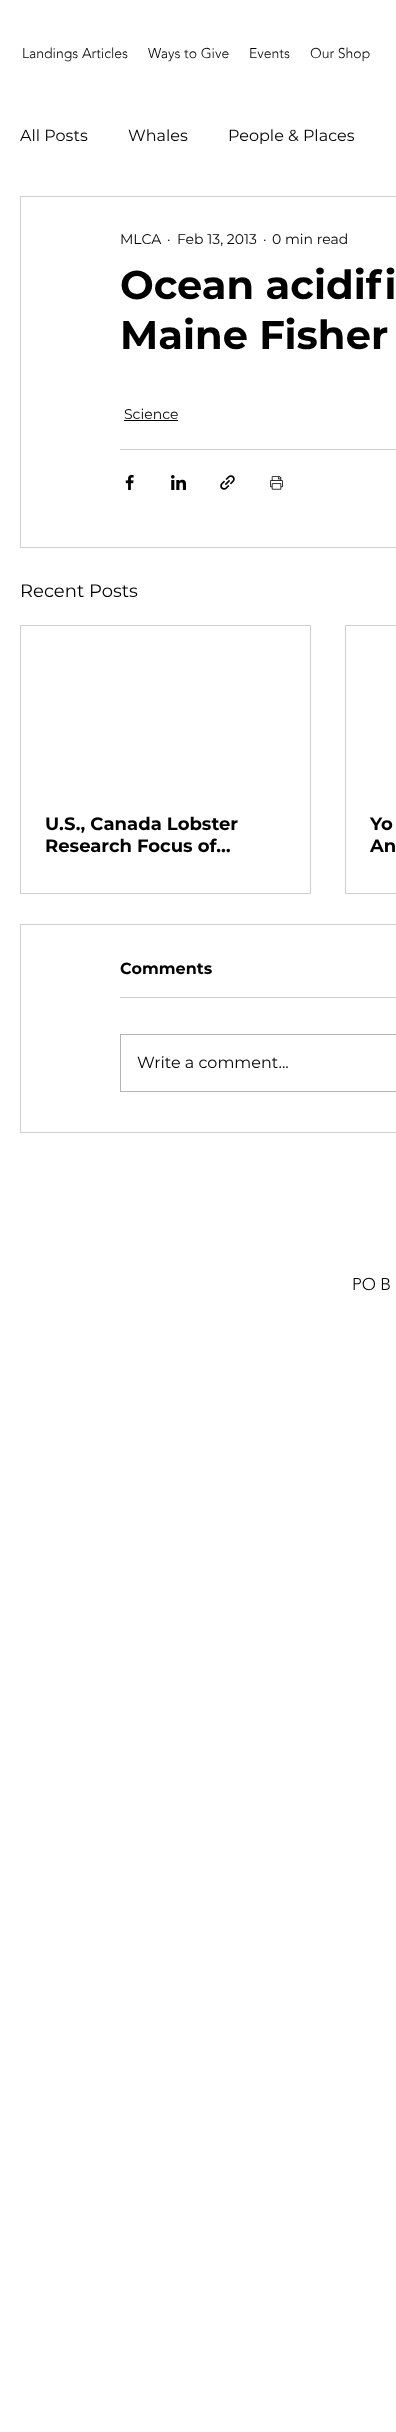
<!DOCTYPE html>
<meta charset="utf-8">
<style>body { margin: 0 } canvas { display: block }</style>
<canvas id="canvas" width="396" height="2432"></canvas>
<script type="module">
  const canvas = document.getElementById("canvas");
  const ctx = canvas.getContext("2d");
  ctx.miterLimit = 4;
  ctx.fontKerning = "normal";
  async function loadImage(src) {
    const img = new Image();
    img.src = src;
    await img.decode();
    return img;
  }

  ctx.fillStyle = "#ffffff";
  ctx.fillRect(0, 0, 396, 2432);
  ctx.font = "300 14px 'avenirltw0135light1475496'";
  ctx.fillStyle = "#000000";
  ctx.fillText("Landings Articles", 22, 58);
  ctx.fillText("Ways to Give", 148, 58);
  ctx.fillText("Events", 249, 58);
  ctx.fillText("Our Shop", 310, 58);
  ctx.font = "16px Montserrat";
  ctx.fillText("All Posts", 20, 141);
  ctx.fillText("Whales", 128, 141);
  ctx.fillText("People & Places", 228, 141);
  ctx.strokeStyle = "#cfcfcf";
  ctx.strokeRect(20.5, 196.5, 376, 351);
  ctx.font = "14px Montserrat";
  ctx.fillText("MLCA", 120, 244);
  ctx.fillText("·", 167, 244);
  ctx.fillText("Feb 13, 2013", 177, 244);
  ctx.fillText("·", 263, 244);
  ctx.fillText("0 min read", 272, 244);
  ctx.font = "bold 40px Montserrat";
  ctx.fillText("Ocean acidifi", 120, 299);
  ctx.fillText("Maine Fisher", 120, 349);
  ctx.font = "14px Montserrat";
  ctx.fillText("Science", 124, 419);
  ctx.fillRect(124, 420, 54, 1);
  ctx.fillStyle = "#cccccc";
  ctx.fillRect(120, 449, 276, 1);
  ctx.drawImage(await loadImage("img1.png"), 125, 475, 9, 15);
  ctx.drawImage(await loadImage("img2.png"), 171, 475, 15, 15);
  ctx.drawImage(await loadImage("img3.png"), 220, 475, 15, 15);
  ctx.drawImage(await loadImage("img4.png"), 270, 476, 13, 14);
  ctx.font = "18px Montserrat";
  ctx.fillStyle = "#000000";
  ctx.fillText("Recent Posts", 20, 597);
  ctx.strokeRect(20.5, 625.5, 290, 268);
  ctx.font = "bold 18px Montserrat";
  ctx.fillText("U.S., Canada Lobster", 45, 830);
  ctx.fillText("Research Focus of…", 45, 852);
  ctx.strokeRect(345.5, 625.5, 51, 268);
  ctx.fillText("Yo", 370, 830);
  ctx.fillText("An", 370, 852);
  ctx.strokeRect(20.5, 924.5, 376, 208);
  ctx.font = "bold 16px Montserrat";
  ctx.fillText("Comments", 120, 974);
  ctx.fillStyle = "#cccccc";
  ctx.fillRect(120, 997, 276, 1);
  ctx.strokeStyle = "#b3b3b3";
  ctx.strokeRect(120.5, 1034.5, 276, 57);
  ctx.font = "16px Montserrat";
  ctx.fillStyle = "#000000";
  ctx.fillText("Write a comment...", 137, 1068);
  ctx.font = "300 17px 'avenirltw0135light1475496'";
  ctx.fillText("PO B", 352, 1290);
</script>
